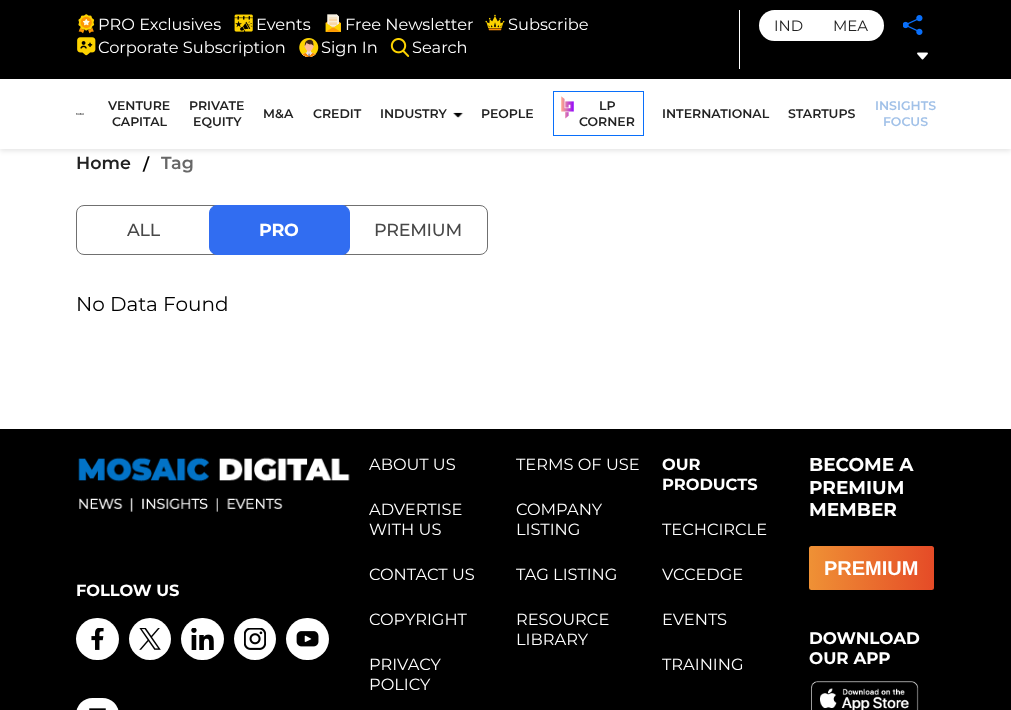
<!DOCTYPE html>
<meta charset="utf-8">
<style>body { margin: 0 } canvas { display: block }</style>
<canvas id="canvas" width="1011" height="710"></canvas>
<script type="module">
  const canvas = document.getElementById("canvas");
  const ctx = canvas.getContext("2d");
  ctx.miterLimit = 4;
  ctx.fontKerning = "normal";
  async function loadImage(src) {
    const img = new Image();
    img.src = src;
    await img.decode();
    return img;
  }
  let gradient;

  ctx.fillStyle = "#ffffff";
  ctx.fillRect(0, 0, 1011, 710);
  ctx.fillStyle = "rgba(0, 0, 0, 0.1)";
  ctx.filter = "blur(2.5px)";
  ctx.beginPath();
  ctx.rect(0, 3, 1011, 148);
  ctx.fill();
  ctx.filter = "none";
  ctx.fillStyle = "#ffffff";
  ctx.fillRect(0, 79, 1011, 70);
  ctx.fillStyle = "#000000";
  ctx.fillRect(0, 0, 1011, 79);
  ctx.fillStyle = "#ffffff";
  ctx.fillRect(739, 10, 1, 59);
  ctx.drawImage(await loadImage("img1.png"), 78, 14, 17, 20);
  ctx.font = "16.25px Montserrat";
  ctx.fillText("PRO Exclusives", 98, 30);
  ctx.drawImage(await loadImage("img2.png"), 234, 14, 19, 18);
  ctx.fillText("Events", 256, 30);
  ctx.drawImage(await loadImage("img3.png"), 325, 14, 16, 18);
  ctx.fillText("Free Newsletter", 345, 30);
  ctx.drawImage(await loadImage("img4.png"), 485, 14, 20, 17);
  ctx.fillText("Subscribe", 508, 30);
  ctx.drawImage(await loadImage("img5.png"), 77, 37, 19, 19);
  ctx.fillText("Corporate Subscription", 98, 53);
  ctx.drawImage(await loadImage("img6.png"), 299, 38, 20, 19);
  ctx.fillText("Sign In", 321, 53);
  ctx.drawImage(await loadImage("img7.png"), 390, 38, 20, 19);
  ctx.fillText("Search", 412, 53);
  ctx.beginPath();
  ctx.roundRect(759, 10, 125, 31, 15.5);
  ctx.fill();
  ctx.font = "15px Montserrat";
  ctx.fillStyle = "#222222";
  ctx.fillText("IND", 774, 31);
  ctx.fillText("MEA", 833, 31);
  ctx.drawImage(await loadImage("img8.png"), 903, 15, 20, 20);
  ctx.drawImage(await loadImage("img9.png"), 917, 52, 11, 8);
  ctx.drawImage(await loadImage("img10.png"), 76, 113, 8, 2);
  ctx.font = "600 12.5px Montserrat";
  ctx.fillText("VENTURE", 108, 110);
  ctx.fillText("CAPITAL", 112, 126);
  ctx.fillText("PRIVATE", 189, 110);
  ctx.fillText("EQUITY", 193, 126);
  ctx.fillText("M&A", 263, 118);
  ctx.fillText("CREDIT", 313, 118);
  ctx.fillText("INDUSTRY", 380, 118);
  ctx.drawImage(await loadImage("img11.png"), 453, 112, 11, 6);
  ctx.fillText("PEOPLE", 481, 118);
  ctx.drawImage(await loadImage("img12.png"), 561, 96, 13, 23);
  ctx.strokeStyle = "#096ffa";
  ctx.strokeRect(553.5, 91.5, 90, 44);
  ctx.fillText("LP", 599, 110);
  ctx.fillText("CORNER", 579, 126);
  ctx.fillText("INTERNATIONAL", 662, 118);
  ctx.fillText("STARTUPS", 788, 118);
  ctx.fillStyle = "#a1c1e8";
  ctx.fillText("INSIGHTS", 875, 110);
  ctx.fillText("FOCUS", 883, 126);
  ctx.font = "600 17.5px Montserrat";
  ctx.fillStyle = "#222222";
  ctx.fillText("Home", 76, 169);
  ctx.font = "600 16.25px Montserrat";
  ctx.fillStyle = "#000000";
  ctx.fillText("/", 143, 170);
  ctx.font = "600 17.5px Montserrat";
  ctx.fillStyle = "#676767";
  ctx.fillText("Tag", 161, 169);
  ctx.beginPath();
  ctx.roundRect(76.5, 205.5, 411, 49, 7.5);
  ctx.strokeStyle = "#707070";
  ctx.stroke();
  ctx.letterSpacing = "-0.25px";
  ctx.font = "500 17.5px Montserrat";
  ctx.fillStyle = "#484848";
  ctx.fillText("ALL", 127, 236);
  ctx.fillStyle = "#316df1";
  ctx.beginPath();
  ctx.roundRect(209.5, 205.5, 140, 49, 7.5);
  ctx.fill();
  ctx.strokeStyle = "#316df1";
  ctx.stroke();
  ctx.font = "bold 17.5px Montserrat";
  ctx.fillStyle = "#ffffff";
  ctx.fillText("PRO", 259, 236);
  ctx.font = "500 17.5px Montserrat";
  ctx.fillStyle = "#484848";
  ctx.fillText("PREMIUM", 374, 236);
  ctx.letterSpacing = "0px";
  ctx.font = "20px Montserrat";
  ctx.fillStyle = "#000000";
  ctx.fillText("No Data Found", 76, 311);
  ctx.fillRect(0, 429, 1011, 281);
  ctx.drawImage(await loadImage("img13.png"), 78, 457, 272, 55);
  ctx.font = "bold 16.25px Montserrat";
  ctx.fillStyle = "#ffffff";
  ctx.fillText("FOLLOW US", 76, 596);
  ctx.beginPath();
  ctx.roundRect(76, 618, 43, 42, 21);
  ctx.fill();
  ctx.drawImage(await loadImage("img14.png"), 91, 628, 13, 22);
  ctx.beginPath();
  ctx.arc(150, 639, 21, 0, Math.PI * 2);
  ctx.fill();
  ctx.drawImage(await loadImage("img15.png"), 139, 628, 22, 22);
  ctx.beginPath();
  ctx.roundRect(181, 618, 43, 42, 21);
  ctx.fill();
  ctx.drawImage(await loadImage("img16.png"), 191, 628, 23, 22);
  ctx.beginPath();
  ctx.arc(255, 639, 21, 0, Math.PI * 2);
  ctx.fill();
  ctx.drawImage(await loadImage("img17.png"), 244, 628, 22, 22);
  ctx.beginPath();
  ctx.roundRect(286, 618, 43, 42, 21);
  ctx.fill();
  ctx.drawImage(await loadImage("img18.png"), 296, 631, 23, 16);
  ctx.beginPath();
  ctx.roundRect(76, 698, 43, 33, 21);
  ctx.fill();
  ctx.drawImage(await loadImage("img19.png"), 89, 708, 17, 2);
  ctx.font = "16.25px Montserrat";
  ctx.fillText("ABOUT US", 369, 470);
  ctx.fillText("ADVERTISE", 369, 515);
  ctx.fillText("WITH US", 369, 535);
  ctx.fillText("CONTACT US", 369, 580);
  ctx.fillText("COPYRIGHT", 369, 625);
  ctx.fillText("PRIVACY", 369, 670);
  ctx.fillText("POLICY", 369, 690);
  ctx.fillText("TERMS OF USE", 516, 470);
  ctx.fillText("COMPANY", 516, 515);
  ctx.fillText("LISTING", 516, 535);
  ctx.fillText("TAG LISTING", 516, 580);
  ctx.fillText("RESOURCE", 516, 625);
  ctx.fillText("LIBRARY", 516, 645);
  ctx.font = "bold 16.25px Montserrat";
  ctx.fillText("OUR", 662, 470);
  ctx.fillText("PRODUCTS", 662, 490);
  ctx.font = "16.25px Montserrat";
  ctx.fillText("TECHCIRCLE", 662, 535);
  ctx.fillText("VCCEDGE", 662, 580);
  ctx.fillText("EVENTS", 662, 625);
  ctx.fillText("TRAINING", 662, 670);
  ctx.font = "bold 18.5px Montserrat";
  ctx.fillText("BECOME A", 809, 471);
  ctx.fillText("PREMIUM", 809, 494);
  ctx.fillText("MEMBER", 809, 516);
  gradient = ctx.createLinearGradient(809, 568, 934, 568);
  gradient.addColorStop(0, "#ef9135");
  gradient.addColorStop(1, "#e54b27");
  ctx.fillStyle = gradient;
  ctx.beginPath();
  ctx.roundRect(809, 546, 125, 44, 2.5);
  ctx.fill();
  ctx.font = "bold 20px Liberation Sans";
  ctx.fillStyle = "#ffffff";
  ctx.fillText("PREMIUM", 824, 575);
  ctx.font = "bold 16.75px Montserrat";
  ctx.fillText("DOWNLOAD", 809, 644);
  ctx.fillText("OUR APP", 809, 664);
  ctx.drawImage(await loadImage("img20.png"), 811, 681, 108, 29);
</script>
